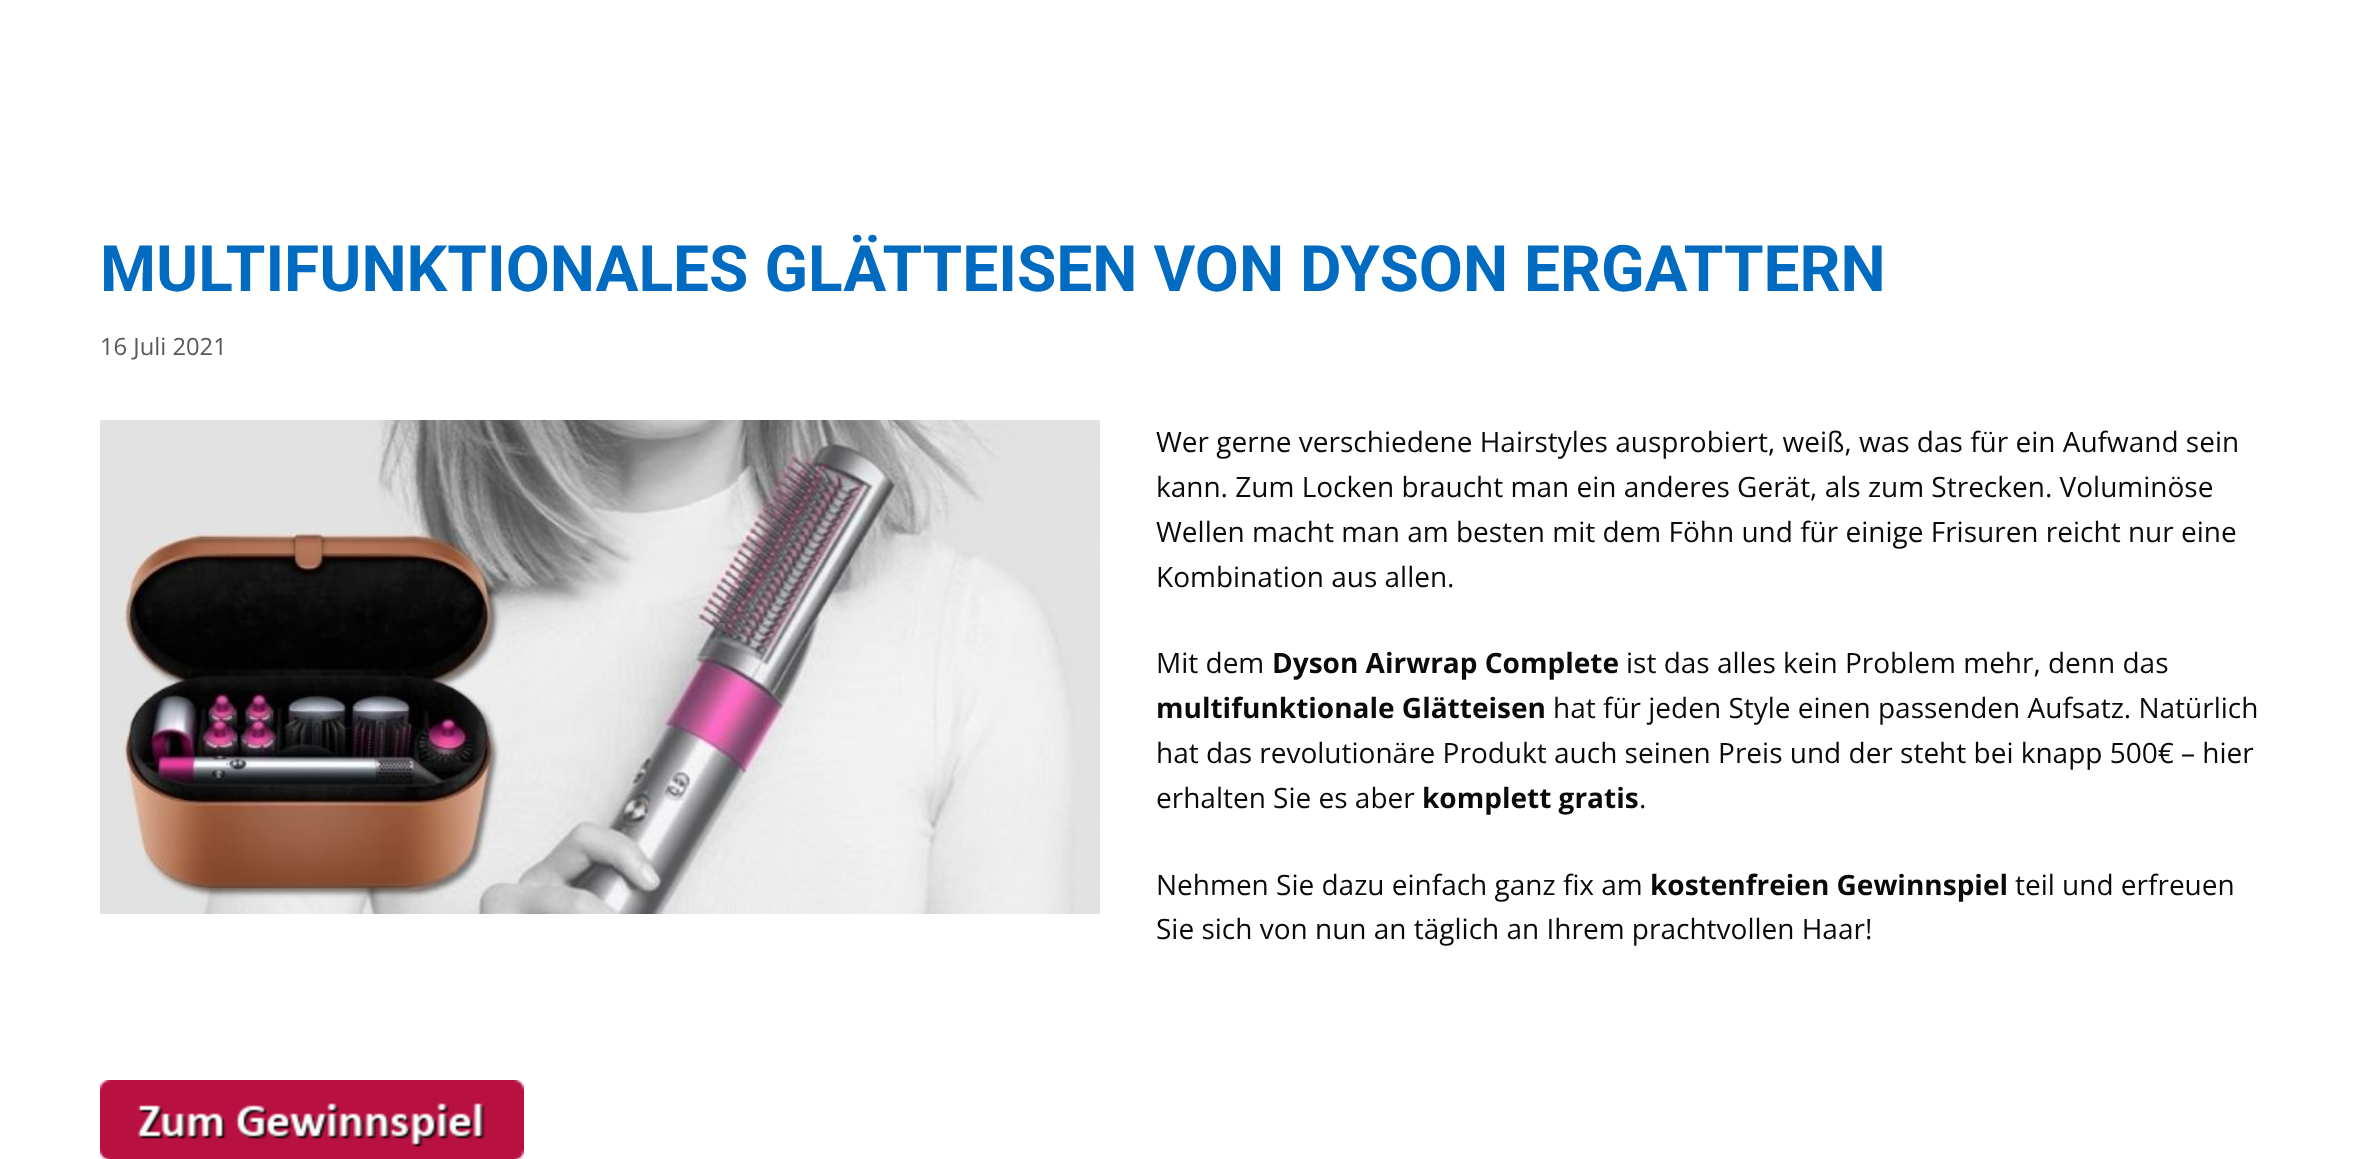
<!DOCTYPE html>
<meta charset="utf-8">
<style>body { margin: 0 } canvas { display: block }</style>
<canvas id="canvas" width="2375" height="1159"></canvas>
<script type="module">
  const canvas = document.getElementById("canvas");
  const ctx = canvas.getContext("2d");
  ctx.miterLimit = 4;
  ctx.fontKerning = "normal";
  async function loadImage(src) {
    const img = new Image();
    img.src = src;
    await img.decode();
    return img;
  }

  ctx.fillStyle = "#ffffff";
  ctx.fillRect(0, 0, 2375, 1159);
  ctx.font = "bold 64px Roboto";
  ctx.fillStyle = "#016bc1";
  ctx.fillText("MULTIFUNKTIONALES GLÄTTEISEN VON DYSON ERGATTERN", 100, 291);
  ctx.font = "23.75px Open Sans";
  ctx.fillStyle = "#595959";
  ctx.fillText("16 Juli 2021", 100, 355);
  ctx.drawImage(await loadImage("img1.png"), 100, 420, 1000, 494);
  ctx.font = "28px Open Sans";
  ctx.fillStyle = "#0a0a0a";
  ctx.fillText("Wer gerne verschiedene Hairstyles ausprobiert, weiß, was das für ein Aufwand sein", 1156, 452);
  ctx.fillText("kann. Zum Locken braucht man ein anderes Gerät, als zum Strecken. Voluminöse", 1156, 497);
  ctx.fillText("Wellen macht man am besten mit dem Föhn und für einige Frisuren reicht nur eine", 1156, 542);
  ctx.fillText("Kombination aus allen.", 1156, 587);
  ctx.fillText("Mit dem", 1156, 673);
  ctx.font = "bold 28px Open Sans";
  ctx.fillText("Dyson Airwrap Complete", 1272, 673);
  ctx.font = "28px Open Sans";
  ctx.fillText("ist das alles kein Problem mehr, denn das", 1626, 673);
  ctx.font = "bold 28px Open Sans";
  ctx.fillText("multifunktionale Glätteisen", 1156, 718);
  ctx.font = "28px Open Sans";
  ctx.fillText("hat für jeden Style einen passenden Aufsatz. Natürlich", 1553, 718);
  ctx.fillText("hat das revolutionäre Produkt auch seinen Preis und der steht bei knapp 500€ – hier", 1156, 763);
  ctx.fillText("erhalten Sie es aber", 1156, 808);
  ctx.font = "bold 28px Open Sans";
  ctx.fillText("komplett gratis", 1422, 808);
  ctx.font = "28px Open Sans";
  ctx.fillText(".", 1639, 808);
  ctx.fillText("Nehmen Sie dazu einfach ganz fix am", 1156, 895);
  ctx.font = "bold 28px Open Sans";
  ctx.fillText("kostenfreien Gewinnspiel", 1650, 895);
  ctx.font = "28px Open Sans";
  ctx.fillText("teil und erfreuen", 2015, 895);
  ctx.fillText("Sie sich von nun an täglich an Ihrem prachtvollen Haar!", 1156, 939);
  ctx.drawImage(await loadImage("img2.png"), 100, 1080, 424, 79);
</script>
